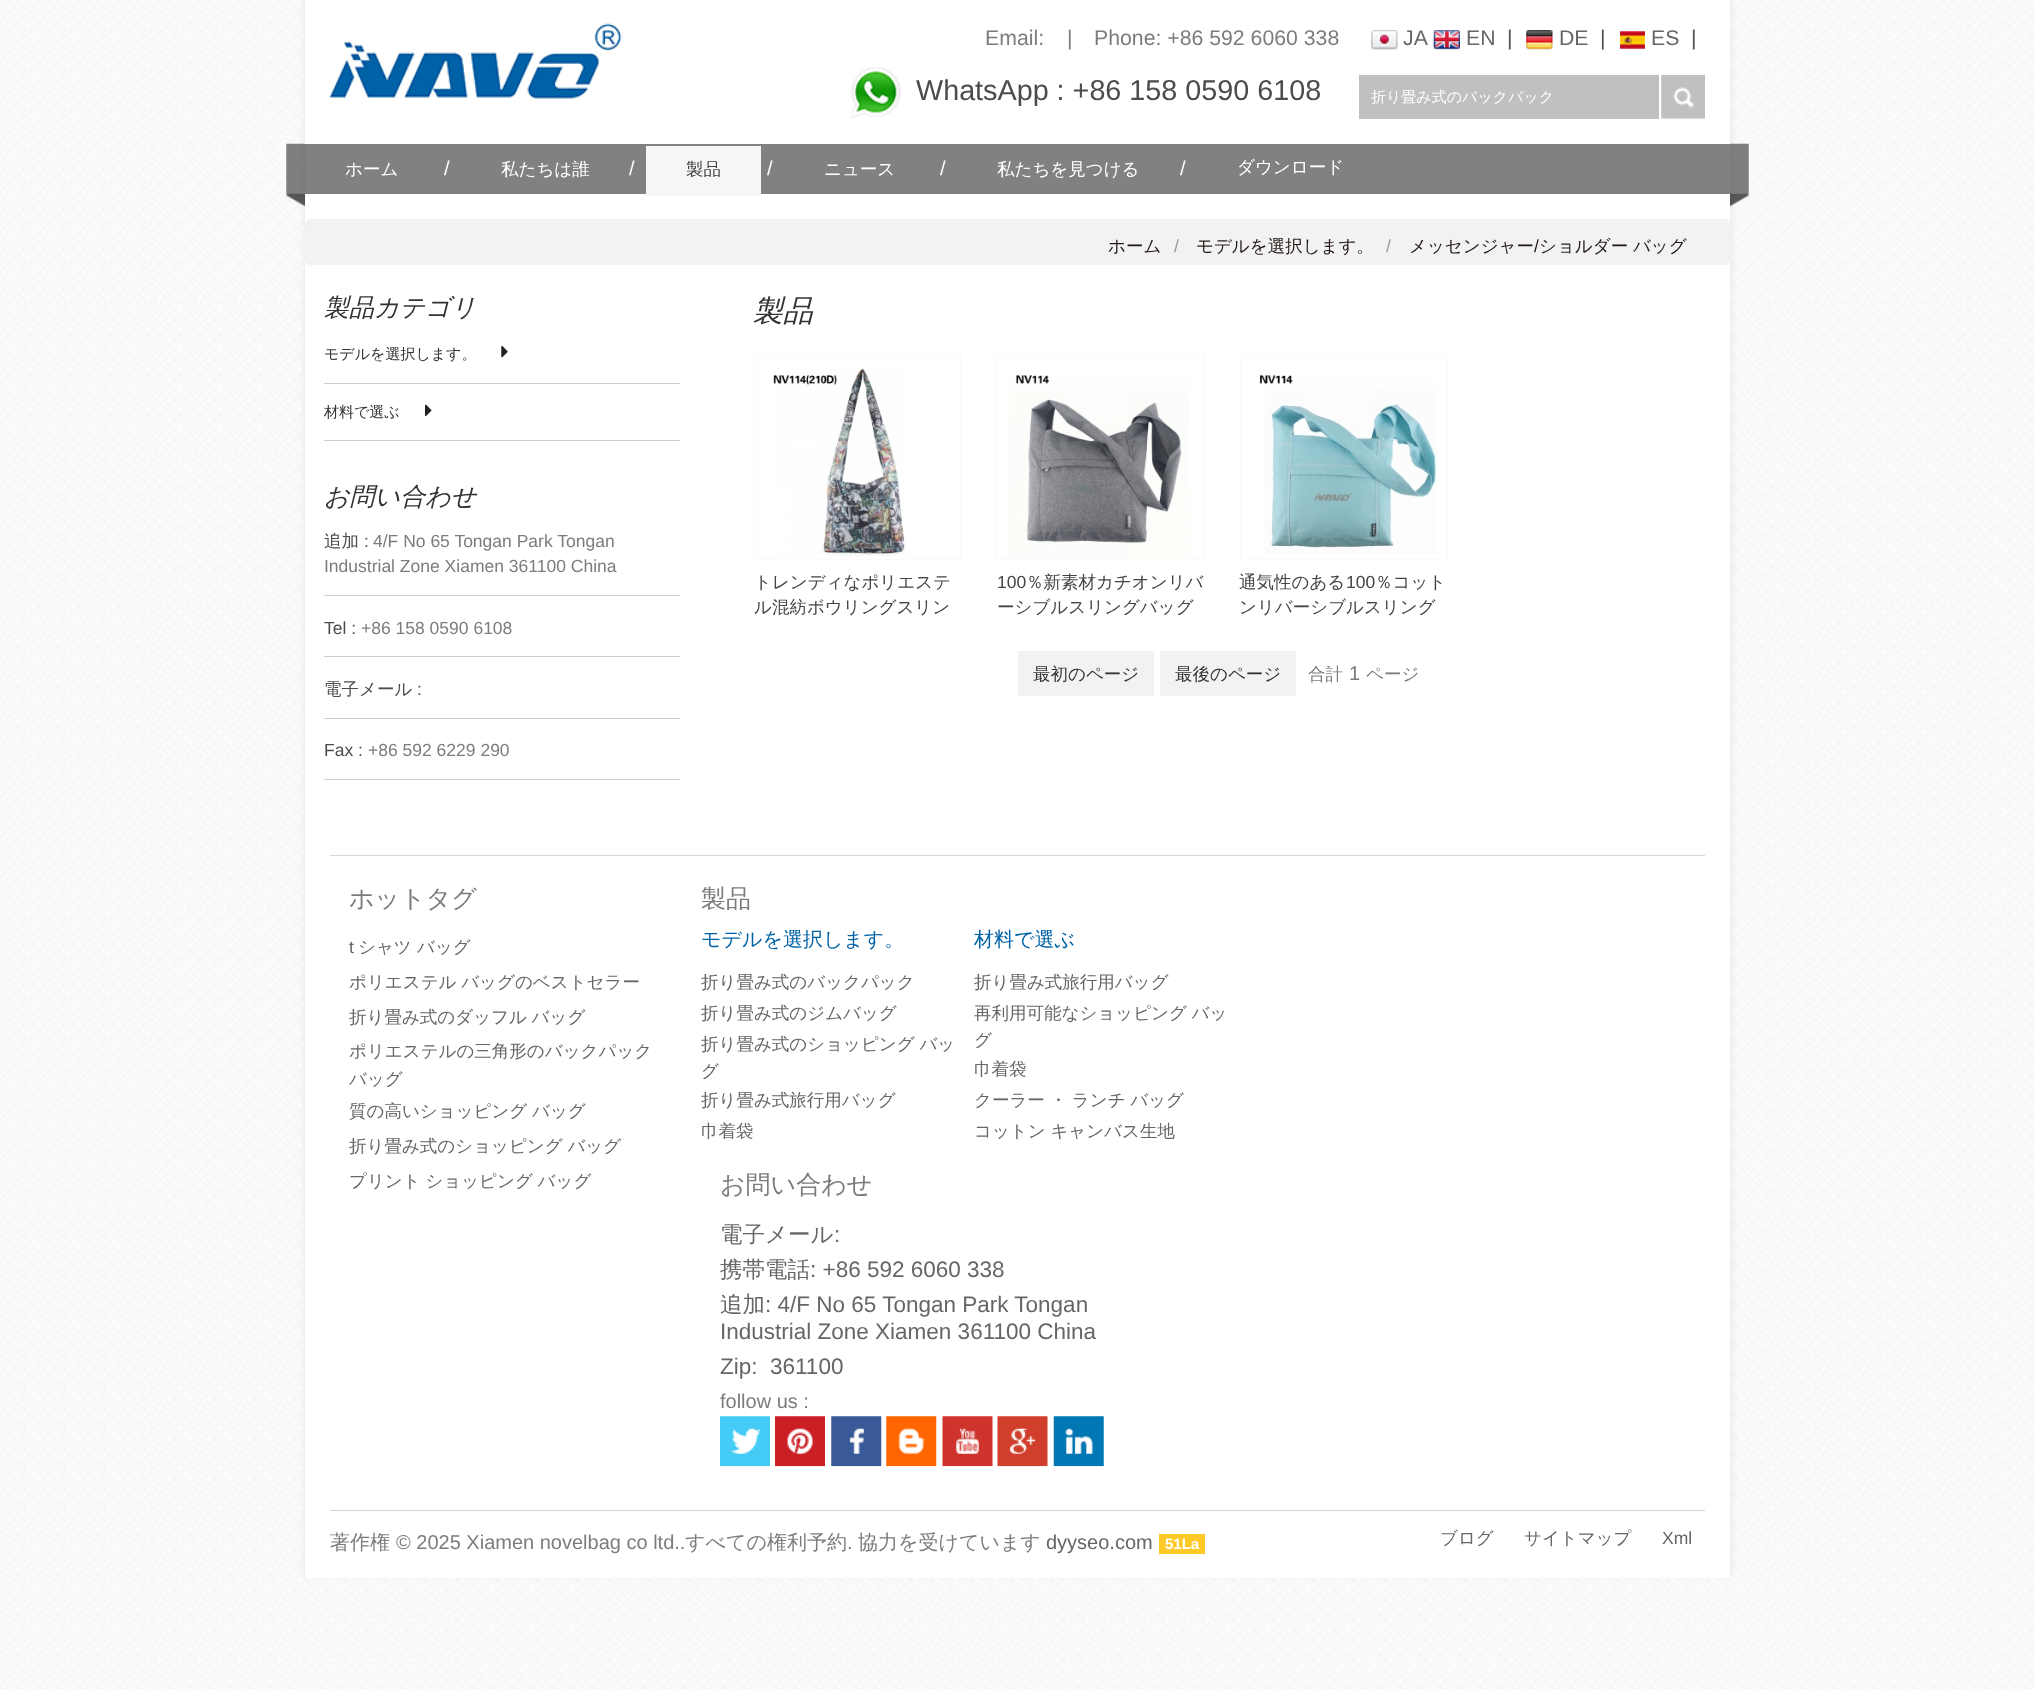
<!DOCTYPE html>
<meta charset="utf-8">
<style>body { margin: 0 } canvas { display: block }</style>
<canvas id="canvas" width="2035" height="1689"></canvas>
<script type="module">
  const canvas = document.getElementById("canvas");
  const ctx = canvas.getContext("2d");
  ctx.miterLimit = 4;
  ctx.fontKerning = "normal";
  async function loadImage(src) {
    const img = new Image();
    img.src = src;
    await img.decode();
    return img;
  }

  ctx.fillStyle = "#ffffff";
  ctx.fillRect(0, 0, 2035, 1689);
  ctx.drawImage(await loadImage("img1.png"), 0, 0, 2035, 1689);
  ctx.fillStyle = "rgba(0, 0, 0, 0.05)";
  ctx.filter = "blur(3px)";
  ctx.beginPath();
  ctx.rect(303, -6, 1430, 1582);
  ctx.fill();
  ctx.filter = "none";
  ctx.fillStyle = "#ffffff";
  ctx.fillRect(305, 0, 1425, 1578);
  ctx.drawImage(await loadImage("img2.png"), 330, 23, 292, 76);
  ctx.font = "21.25px Liberation Sans";
  ctx.fillStyle = "#7c7c7c";
  ctx.fillText("Email:", 985, 45);
  ctx.fillText("|", 1067, 45);
  ctx.fillText("Phone: +86 592 6060 338", 1094, 45);
  ctx.drawImage(await loadImage("img3.png"), 1371, 30, 27, 20);
  ctx.fillStyle = "#666666";
  ctx.fillText("JA", 1403, 45);
  ctx.drawImage(await loadImage("img4.png"), 1433, 30, 27, 20);
  ctx.fillText("EN", 1466, 45);
  ctx.fillStyle = "#4c4c4c";
  ctx.fillText("|", 1507, 45);
  ctx.drawImage(await loadImage("img5.png"), 1526, 30, 27, 20);
  ctx.fillStyle = "#666666";
  ctx.fillText("DE", 1559, 45);
  ctx.fillStyle = "#4c4c4c";
  ctx.fillText("|", 1600, 45);
  ctx.drawImage(await loadImage("img6.png"), 1620, 31, 25, 18);
  ctx.fillStyle = "#666666";
  ctx.fillText("ES", 1651, 45);
  ctx.fillStyle = "#4c4c4c";
  ctx.fillText("|", 1691, 45);
  ctx.drawImage(await loadImage("img7.png"), 850, 67, 51, 52);
  ctx.font = "28.75px Liberation Sans";
  ctx.fillText("WhatsApp : +86 158 0590 6108", 916, 100);
  ctx.fillStyle = "#c0c0c0";
  ctx.fillRect(1359, 75, 300, 44);
  ctx.font = "500 15px WenQuanYi Zen Hei";
  ctx.fillStyle = "#ffffff";
  ctx.fillText("折り畳み式のバックパック", 1371, 102);
  ctx.drawImage(await loadImage("img8.png"), 1661, 75, 44, 44);
  ctx.fillStyle = "#818181";
  ctx.fillRect(305, 144, 1425, 50);
  ctx.drawImage(await loadImage("img9.png"), 286, 143, 19, 64);
  ctx.font = "500 17.5px WenQuanYi Zen Hei";
  ctx.fillStyle = "#ffffff";
  ctx.fillText("ホーム", 345, 175);
  ctx.font = "20px Liberation Sans";
  ctx.fillText("/", 444, 175);
  ctx.font = "500 17.5px WenQuanYi Zen Hei";
  ctx.fillText("私たちは誰", 501, 175);
  ctx.font = "20px Liberation Sans";
  ctx.fillText("/", 629, 175);
  ctx.fillStyle = "#f6f6f6";
  ctx.fillRect(646, 146, 115, 50);
  ctx.font = "500 17.5px WenQuanYi Zen Hei";
  ctx.fillStyle = "#444444";
  ctx.fillText("製品", 686, 175);
  ctx.font = "20px Liberation Sans";
  ctx.fillStyle = "#ffffff";
  ctx.fillText("/", 767, 175);
  ctx.font = "500 17.5px WenQuanYi Zen Hei";
  ctx.fillText("ニュース", 824, 175);
  ctx.font = "20px Liberation Sans";
  ctx.fillText("/", 940, 175);
  ctx.font = "500 17.5px WenQuanYi Zen Hei";
  ctx.fillText("私たちを見つける", 997, 175);
  ctx.font = "20px Liberation Sans";
  ctx.fillText("/", 1180, 175);
  ctx.font = "500 17.5px WenQuanYi Zen Hei";
  ctx.fillText("ダウンロード", 1237, 173);
  ctx.drawImage(await loadImage("img10.png"), 1730, 143, 19, 64);
  ctx.fillStyle = "#f2f2f2";
  ctx.beginPath();
  ctx.roundRect(305, 219, 1425, 46, 5);
  ctx.fill();
  ctx.fillStyle = "#231815";
  ctx.fillText("ホーム", 1108, 252);
  ctx.font = "17.5px Liberation Sans";
  ctx.fillStyle = "#999999";
  ctx.fillText("/", 1174, 252);
  ctx.font = "500 17.5px WenQuanYi Zen Hei";
  ctx.fillStyle = "#231815";
  ctx.fillText("モデルを選択します。", 1196, 252);
  ctx.font = "17.5px Liberation Sans";
  ctx.fillStyle = "#999999";
  ctx.fillText("/", 1386, 252);
  ctx.font = "500 17.5px WenQuanYi Zen Hei";
  ctx.fillStyle = "#231815";
  ctx.fillText("メッセンジャー", 1409, 252);
  ctx.font = "17.5px Liberation Sans";
  ctx.fillText("/", 1534, 252);
  ctx.wordSpacing = "-0.5px";
  ctx.font = "500 17.5px WenQuanYi Zen Hei";
  ctx.fillText("ショルダー バッグ", 1539, 252);
  ctx.wordSpacing = "0px";
  ctx.font = "italic 500 25px WenQuanYi Zen Hei";
  ctx.fillStyle = "#333333";
  ctx.fillText("製品カテゴリ", 324, 316);
  ctx.fillStyle = "#cccccc";
  ctx.fillRect(324, 383, 356, 1);
  ctx.font = "500 15px WenQuanYi Zen Hei";
  ctx.fillStyle = "#333333";
  ctx.fillText("モデルを選択します。", 324, 359);
  ctx.drawImage(await loadImage("img11.png"), 501, 346, 7, 12);
  ctx.fillStyle = "#cccccc";
  ctx.fillRect(324, 440, 356, 1);
  ctx.fillStyle = "#333333";
  ctx.fillText("材料で選ぶ", 324, 417);
  ctx.drawImage(await loadImage("img12.png"), 425, 404, 7, 12);
  ctx.font = "italic 500 25px WenQuanYi Zen Hei";
  ctx.fillText("お問い合わせ", 324, 505);
  ctx.fillStyle = "#cccccc";
  ctx.fillRect(324, 595, 356, 1);
  ctx.font = "500 17.5px WenQuanYi Zen Hei";
  ctx.fillStyle = "#4c4c4c";
  ctx.fillText("追加", 324, 547);
  ctx.font = "17.5px Liberation Sans";
  ctx.fillText(":", 364, 547);
  ctx.fillStyle = "#7c7c7c";
  ctx.fillText("4/F No 65 Tongan Park Tongan", 373, 547);
  ctx.fillText("Industrial Zone Xiamen 361100 China", 324, 572);
  ctx.fillStyle = "#cccccc";
  ctx.fillRect(324, 656, 356, 1);
  ctx.fillStyle = "#4c4c4c";
  ctx.fillText("Tel :", 324, 634);
  ctx.fillStyle = "#7c7c7c";
  ctx.fillText("+86 158 0590 6108", 361, 634);
  ctx.fillStyle = "#cccccc";
  ctx.fillRect(324, 718, 356, 1);
  ctx.font = "500 17.5px WenQuanYi Zen Hei";
  ctx.fillStyle = "#4c4c4c";
  ctx.fillText("電子メール", 324, 695);
  ctx.font = "17.5px Liberation Sans";
  ctx.fillText(":", 417, 695);
  ctx.fillStyle = "#cccccc";
  ctx.fillRect(324, 779, 356, 1);
  ctx.fillStyle = "#4c4c4c";
  ctx.fillText("Fax :", 324, 756);
  ctx.fillStyle = "#7c7c7c";
  ctx.fillText("+86 592 6229 290", 368, 756);
  ctx.font = "italic 500 30px WenQuanYi Zen Hei";
  ctx.fillStyle = "#333333";
  ctx.fillText("製品", 753, 321);
  ctx.strokeStyle = "#fafafa";
  ctx.strokeRect(754.5, 353.5, 206, 206);
  ctx.drawImage(await loadImage("img13.png"), 773, 368, 133, 189);
  ctx.font = "500 17.5px WenQuanYi Zen Hei";
  ctx.fillStyle = "#444444";
  ctx.fillText("トレンディなポリエステ", 754, 588);
  ctx.fillText("ル混紡ボウリングスリン", 754, 613);
  ctx.strokeRect(996.5, 353.5, 208, 206);
  ctx.drawImage(await loadImage("img14.png"), 1008, 375, 182, 184);
  ctx.font = "17.5px Liberation Sans";
  ctx.fillText("100", 997, 588);
  ctx.font = "500 17.5px WenQuanYi Zen Hei";
  ctx.fillText("％新素材カチオンリバ", 1026, 588);
  ctx.fillText("ーシブルスリングバッグ", 997, 613);
  ctx.strokeRect(1240.5, 353.5, 207, 206);
  ctx.drawImage(await loadImage("img15.png"), 1259, 375, 178, 178);
  ctx.fillText("通気性のある", 1239, 588);
  ctx.font = "17.5px Liberation Sans";
  ctx.fillText("100", 1346, 588);
  ctx.font = "500 17.5px WenQuanYi Zen Hei";
  ctx.fillText("％コット", 1375, 588);
  ctx.fillText("ンリバーシブルスリング", 1239, 613);
  ctx.fillStyle = "#f2f2f2";
  ctx.fillRect(1018, 651, 136, 45);
  ctx.fillStyle = "#333333";
  ctx.fillText("最初のページ", 1033, 680);
  ctx.fillStyle = "#f2f2f2";
  ctx.fillRect(1160, 651, 136, 45);
  ctx.fillStyle = "#333333";
  ctx.fillText("最後のページ", 1175, 680);
  ctx.fillStyle = "#7c7c7c";
  ctx.fillText("合計", 1308, 680);
  ctx.font = "20px Liberation Sans";
  ctx.fillText("1", 1349, 680);
  ctx.font = "500 17.5px WenQuanYi Zen Hei";
  ctx.fillText("ページ", 1366, 680);
  ctx.fillStyle = "#d5d5d5";
  ctx.fillRect(330, 855, 1375, 1);
  ctx.fillRect(330, 1510, 1375, 1);
  ctx.font = "500 25px WenQuanYi Zen Hei";
  ctx.fillStyle = "#7c7c7c";
  ctx.fillText("ホットタグ", 349, 907);
  ctx.font = "17.5px Liberation Sans";
  ctx.fillStyle = "#666666";
  ctx.fillText("t", 349, 953);
  ctx.font = "500 17.5px WenQuanYi Zen Hei";
  ctx.fillText("シャツ バッグ", 358, 953);
  ctx.wordSpacing = "-0.5px";
  ctx.fillText("ポリエステル バッグのベストセラー", 349, 988);
  ctx.fillText("折り畳み式のダッフル バッグ", 349, 1023);
  ctx.wordSpacing = "0px";
  ctx.fillText("ポリエステルの三角形のバックパック", 349, 1057);
  ctx.fillText("バッグ", 349, 1085);
  ctx.wordSpacing = "-0.5px";
  ctx.fillText("質の高いショッピング バッグ", 349, 1117);
  ctx.fillText("折り畳み式のショッピング バッグ", 349, 1152);
  ctx.fillText("プリント ショッピング バッグ", 349, 1187);
  ctx.wordSpacing = "0px";
  ctx.font = "500 25px WenQuanYi Zen Hei";
  ctx.fillStyle = "#7c7c7c";
  ctx.fillText("製品", 701, 907);
  ctx.font = "500 20px WenQuanYi Zen Hei";
  ctx.fillStyle = "#0062a6";
  ctx.fillText("モデルを選択します。", 701, 946);
  ctx.font = "500 17.5px WenQuanYi Zen Hei";
  ctx.fillStyle = "#666666";
  ctx.fillText("折り畳み式のバックパック", 701, 988);
  ctx.fillText("折り畳み式のジムバッグ", 701, 1019);
  ctx.wordSpacing = "-0.5px";
  ctx.fillText("折り畳み式のショッピング バッ", 701, 1050);
  ctx.wordSpacing = "0px";
  ctx.fillText("グ", 701, 1077);
  ctx.fillText("折り畳み式旅行用バッグ", 701, 1106);
  ctx.fillText("巾着袋", 701, 1137);
  ctx.font = "500 20px WenQuanYi Zen Hei";
  ctx.fillStyle = "#0062a6";
  ctx.fillText("材料で選ぶ", 974, 946);
  ctx.font = "500 17.5px WenQuanYi Zen Hei";
  ctx.fillStyle = "#666666";
  ctx.fillText("折り畳み式旅行用バッグ", 974, 988);
  ctx.wordSpacing = "-0.5px";
  ctx.fillText("再利用可能なショッピング バッ", 974, 1019);
  ctx.wordSpacing = "0px";
  ctx.fillText("グ", 974, 1046);
  ctx.fillText("巾着袋", 974, 1075);
  ctx.wordSpacing = "-0.5px";
  ctx.fillText("クーラー ・ ランチ バッグ", 974, 1106);
  ctx.fillText("コットン キャンバス生地", 974, 1137);
  ctx.wordSpacing = "0px";
  ctx.font = "500 25px WenQuanYi Zen Hei";
  ctx.fillStyle = "#7c7c7c";
  ctx.fillText("お問い合わせ", 720, 1193);
  ctx.font = "500 22.5px WenQuanYi Zen Hei";
  ctx.fillStyle = "#666666";
  ctx.fillText("電子メール", 720, 1242);
  ctx.font = "22.5px Liberation Sans";
  ctx.fillText(":", 834, 1242);
  ctx.font = "500 22.5px WenQuanYi Zen Hei";
  ctx.fillText("携帯電話", 720, 1277);
  ctx.font = "22.5px Liberation Sans";
  ctx.fillText(": +86 592 6060 338", 810, 1277);
  ctx.font = "500 22.5px WenQuanYi Zen Hei";
  ctx.fillText("追加", 720, 1312);
  ctx.font = "22.5px Liberation Sans";
  ctx.fillText(": 4/F No 65 Tongan Park Tongan", 765, 1312);
  ctx.fillText("Industrial Zone Xiamen 361100 China", 720, 1339);
  ctx.fillText("Zip:", 720, 1374);
  ctx.fillText("361100", 770, 1374);
  ctx.font = "20px Liberation Sans";
  ctx.fillStyle = "#7c7c7c";
  ctx.fillText("follow us :", 720, 1408);
  ctx.drawImage(await loadImage("img16.png"), 720, 1416, 50, 51);
  ctx.drawImage(await loadImage("img17.png"), 775, 1416, 50, 51);
  ctx.drawImage(await loadImage("img18.png"), 831, 1416, 51, 51);
  ctx.drawImage(await loadImage("img19.png"), 886, 1416, 51, 51);
  ctx.drawImage(await loadImage("img20.png"), 942, 1416, 51, 51);
  ctx.drawImage(await loadImage("img21.png"), 997, 1416, 51, 51);
  ctx.drawImage(await loadImage("img22.png"), 1053, 1416, 51, 51);
  ctx.font = "500 20px WenQuanYi Zen Hei";
  ctx.fillText("著作権", 330, 1549);
  ctx.font = "20px Liberation Sans";
  ctx.fillText("© 2025 Xiamen novelbag co ltd..", 396, 1549);
  ctx.font = "500 20px WenQuanYi Zen Hei";
  ctx.fillText("すべての権利予約", 685, 1549);
  ctx.font = "20px Liberation Sans";
  ctx.fillText(".", 847, 1549);
  ctx.font = "500 20px WenQuanYi Zen Hei";
  ctx.fillText("協力を受けています", 858, 1549);
  ctx.font = "20px Liberation Sans";
  ctx.fillStyle = "#666666";
  ctx.fillText("dyyseo.com", 1046, 1549);
  ctx.fillStyle = "#ffca28";
  ctx.fillRect(1159, 1534, 46, 20);
  ctx.font = "bold 15px Liberation Sans";
  ctx.fillStyle = "#ffffff";
  ctx.fillText("51La", 1165, 1549);
  ctx.font = "500 17.5px WenQuanYi Zen Hei";
  ctx.fillStyle = "#666666";
  ctx.fillText("ブログ", 1440, 1544);
  ctx.fillText("サイトマップ", 1524, 1544);
  ctx.font = "17.5px Liberation Sans";
  ctx.fillText("Xml", 1662, 1544);
</script>
